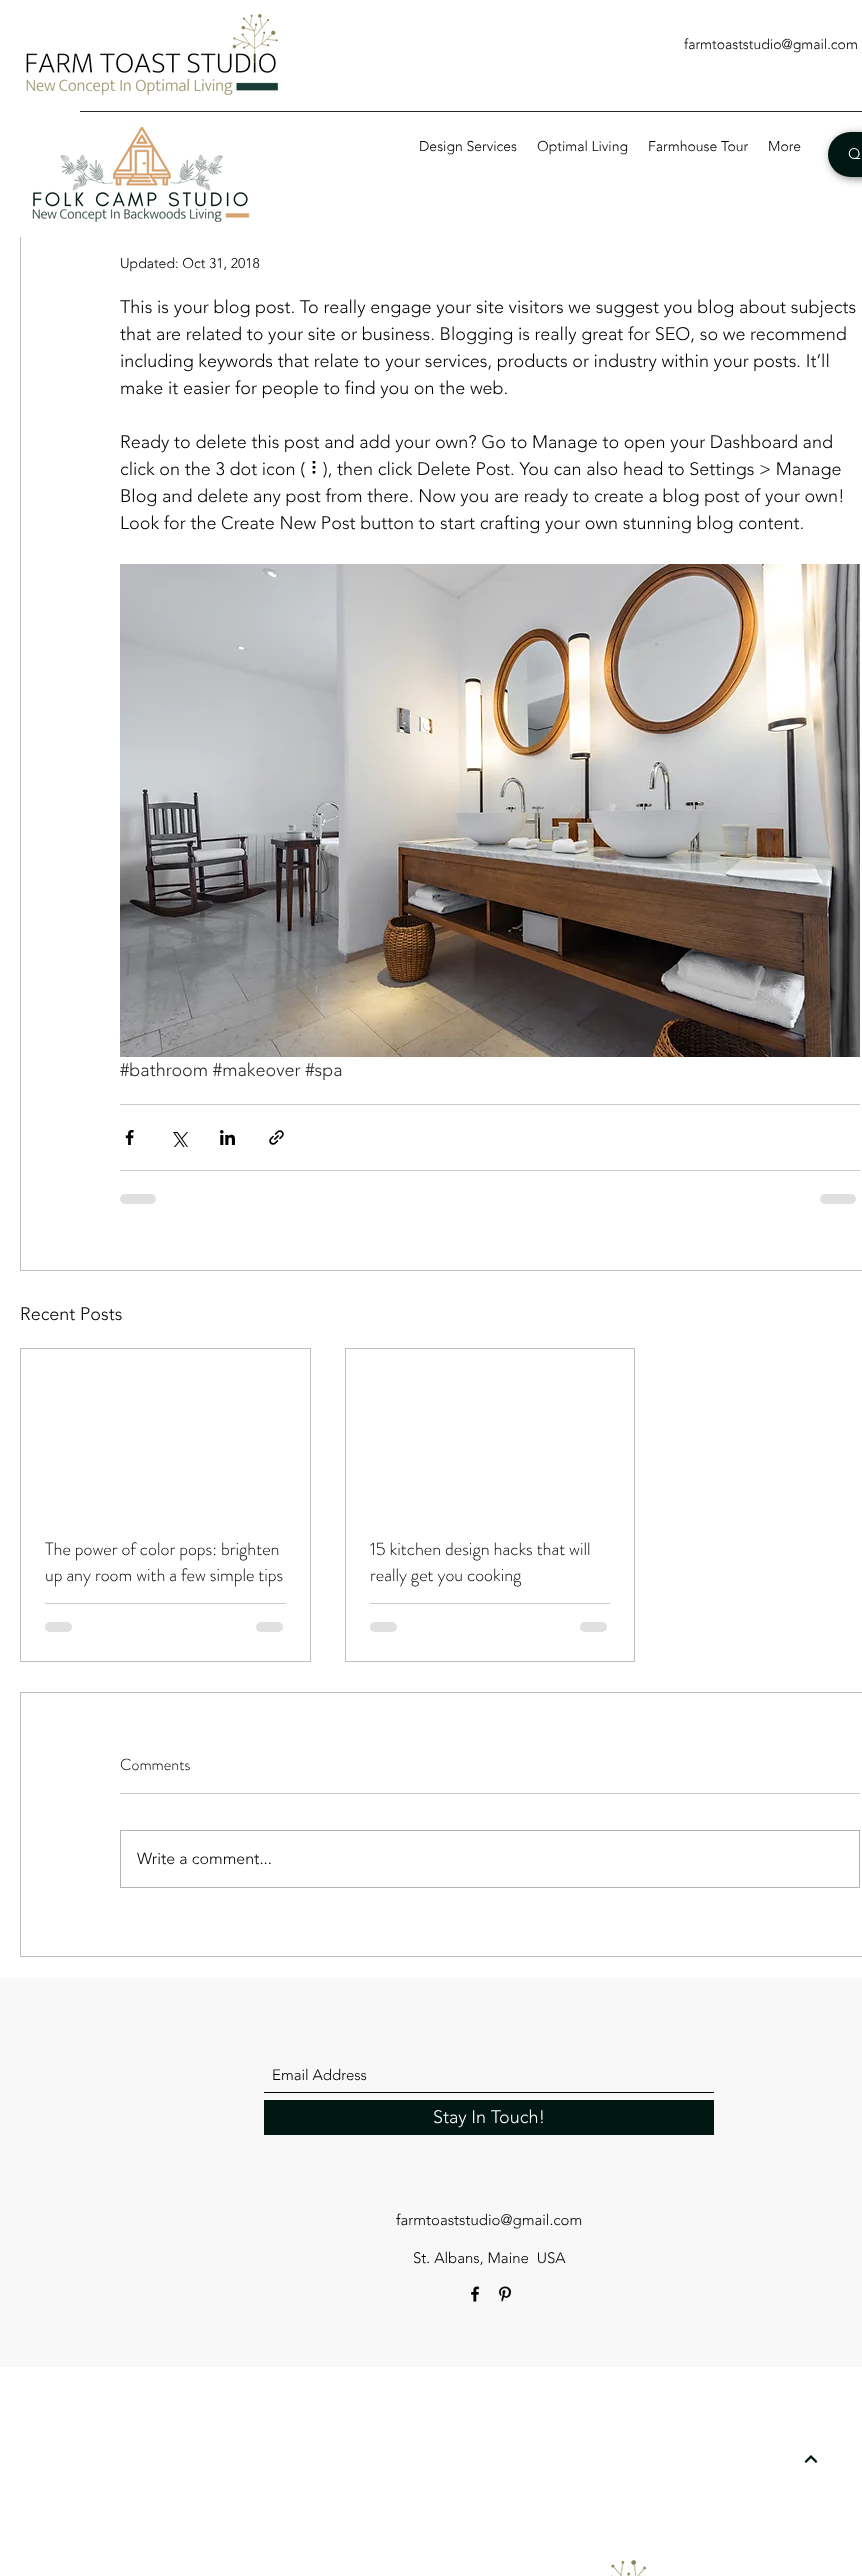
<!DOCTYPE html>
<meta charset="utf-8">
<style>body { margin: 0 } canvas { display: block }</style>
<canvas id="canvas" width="862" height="2576"></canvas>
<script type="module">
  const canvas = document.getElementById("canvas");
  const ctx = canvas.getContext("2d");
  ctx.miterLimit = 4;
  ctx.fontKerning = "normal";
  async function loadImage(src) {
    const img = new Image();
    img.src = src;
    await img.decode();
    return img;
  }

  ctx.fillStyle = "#ffffff";
  ctx.fillRect(0, 0, 862, 2576);
  ctx.strokeStyle = "#bfbfbf";
  ctx.strokeRect(20.5, 32.5, 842, 1238);
  ctx.fillRect(20, 32, 842, 205);
  ctx.drawImage(await loadImage("img1.png"), 26, 14, 253, 81);
  ctx.font = "300 14px 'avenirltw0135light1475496'";
  ctx.fillStyle = "#000000";
  ctx.fillText("farmtoaststudio@gmail.com", 684, 49);
  ctx.fillStyle = "#262626";
  ctx.fillRect(80, 111, 782, 1);
  ctx.drawImage(await loadImage("img2.png"), 32, 127, 218, 96);
  ctx.fillStyle = "#000000";
  ctx.fillText("Design Services", 419, 151);
  ctx.fillText("Optimal Living", 537, 151);
  ctx.fillText("Farmhouse Tour", 648, 151);
  ctx.fillText("More", 768, 151);
  ctx.fillStyle = "rgba(0, 0, 0, 0.45)";
  ctx.filter = "blur(4px)";
  ctx.beginPath();
  ctx.roundRect(830, 134, 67, 45, 22.5);
  ctx.fill();
  ctx.filter = "none";
  ctx.fillStyle = "#001712";
  ctx.beginPath();
  ctx.roundRect(828, 132, 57, 45, 22.5);
  ctx.fill();
  ctx.font = "300 15px 'avenirltw0135light1475496'";
  ctx.fillStyle = "#ffffff";
  ctx.fillText("Q", 848, 159);
  ctx.font = "300 14px 'avenirltw0135light1475496'";
  ctx.fillStyle = "#000000";
  ctx.fillText("Updated: Oct 31, 2018", 120, 268);
  ctx.font = "300 18px 'avenirltw0135light1475496'";
  ctx.fillText("This is your blog post. To really engage your site visitors we suggest you blog about subjects", 120, 313);
  ctx.fillText("that are related to your site or business. Blogging is really great for SEO, so we recommend", 120, 340);
  ctx.fillText("including keywords that relate to your services, products or industry within your posts. It’ll", 120, 367);
  ctx.fillText("make it easier for people to find you on the web.", 120, 394);
  ctx.fillText("Ready to delete this post and add your own? Go to Manage to open your Dashboard and", 120, 448);
  ctx.fillText("click on the 3 dot icon (", 120, 475);
  ctx.font = "18px DejaVu Sans";
  ctx.fillText("⠇", 310, 475);
  ctx.font = "300 18px 'avenirltw0135light1475496'";
  ctx.fillText("), then click Delete Post. You can also head to Settings > Manage", 323, 475);
  ctx.fillText("Blog and delete any post from there. Now you are ready to create a blog post of your own!", 120, 502);
  ctx.fillText("Look for the Create New Post button to start crafting your own stunning blog content.", 120, 529);
  ctx.drawImage(await loadImage("img3.png"), 120, 564, 740, 493);
  ctx.fillStyle = "#282828";
  ctx.fillText("#bathroom #makeover #spa", 120, 1076);
  ctx.fillStyle = "#cccccc";
  ctx.fillRect(120, 1104, 740, 1);
  ctx.drawImage(await loadImage("img4.png"), 125, 1130, 9, 15);
  ctx.drawImage(await loadImage("img5.png"), 173, 1132, 15, 15);
  ctx.drawImage(await loadImage("img6.png"), 220, 1130, 15, 15);
  ctx.drawImage(await loadImage("img7.png"), 269, 1130, 15, 15);
  ctx.fillRect(120, 1170, 740, 1);
  ctx.fillStyle = "#e0e0e0";
  ctx.beginPath();
  ctx.roundRect(120, 1194, 36, 10, 5);
  ctx.fill();
  ctx.beginPath();
  ctx.roundRect(820, 1194, 36, 10, 5);
  ctx.fill();
  ctx.fillStyle = "#000000";
  ctx.fillText("Recent Posts", 20, 1320);
  ctx.strokeRect(20.5, 1348.5, 290, 313);
  ctx.font = "300 18px 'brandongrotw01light'";
  ctx.fillText("The power of color pops: brighten", 45, 1555);
  ctx.fillText("up any room with a few simple tips", 45, 1581);
  ctx.fillStyle = "#cccccc";
  ctx.fillRect(45, 1603, 241, 1);
  ctx.fillStyle = "#e0e0e0";
  ctx.beginPath();
  ctx.roundRect(45, 1622, 27, 10, 5);
  ctx.fill();
  ctx.beginPath();
  ctx.roundRect(256, 1622, 27, 10, 5);
  ctx.fill();
  ctx.strokeRect(345.5, 1348.5, 289, 313);
  ctx.fillStyle = "#000000";
  ctx.fillText("15 kitchen design hacks that will", 370, 1555);
  ctx.fillText("really get you cooking", 370, 1581);
  ctx.fillStyle = "#cccccc";
  ctx.fillRect(370, 1603, 240, 1);
  ctx.fillStyle = "#e0e0e0";
  ctx.beginPath();
  ctx.roundRect(370, 1622, 27, 10, 5);
  ctx.fill();
  ctx.beginPath();
  ctx.roundRect(580, 1622, 27, 10, 5);
  ctx.fill();
  ctx.strokeRect(20.5, 1692.5, 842, 264);
  ctx.font = "300 16px 'brandongrotw01light'";
  ctx.fillStyle = "#000000";
  ctx.fillText("Comments", 120, 1770);
  ctx.fillStyle = "#cccccc";
  ctx.fillRect(120, 1793, 740, 1);
  ctx.strokeStyle = "#b3b3b3";
  ctx.strokeRect(120.5, 1830.5, 739, 57);
  ctx.font = "300 16px 'avenirltw0135light1475496'";
  ctx.fillStyle = "#000000";
  ctx.fillText("Write a comment...", 137, 1864);
  ctx.fillStyle = "#f8f8f8";
  ctx.fillRect(0, 1978, 862, 389);
  ctx.fillStyle = "#000000";
  ctx.fillRect(264, 2092, 450, 1);
  ctx.font = "300 15px 'avenirltw0135light1475496'";
  ctx.fillText("Email Address", 272, 2080);
  ctx.fillStyle = "#001712";
  ctx.fillRect(264, 2100, 450, 35);
  ctx.font = "300 18px 'avenirltw0135light1475496'";
  ctx.fillStyle = "#ffffff";
  ctx.fillText("Stay In Touch!", 433, 2123);
  ctx.font = "300 15px 'avenirltw0135light1475496'";
  ctx.fillStyle = "#000000";
  ctx.fillText("farmtoaststudio@gmail.com", 396, 2225);
  ctx.fillText("St. Albans, Maine  USA", 413, 2263);
  ctx.drawImage(await loadImage("img8.png"), 471, 2286, 9, 16);
  ctx.drawImage(await loadImage("img9.png"), 498, 2286, 14, 16);
  ctx.drawImage(await loadImage("img10.png"), 611, 2560, 35, 16);
  ctx.drawImage(await loadImage("img11.png"), 804, 2455, 14, 8);
</script>
